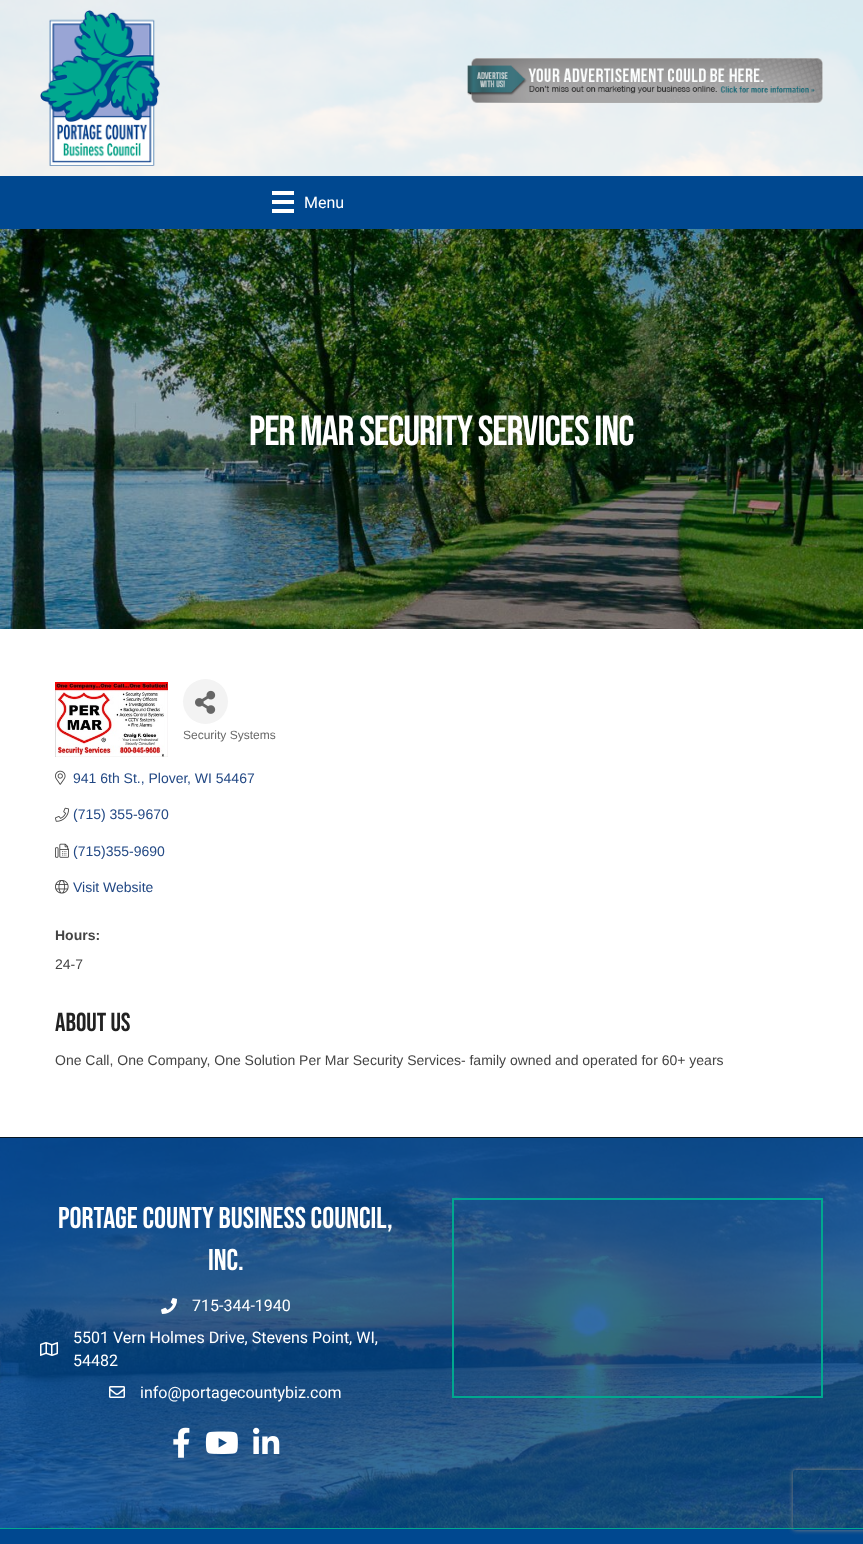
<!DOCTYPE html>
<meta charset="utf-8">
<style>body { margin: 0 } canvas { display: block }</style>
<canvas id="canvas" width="863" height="1544"></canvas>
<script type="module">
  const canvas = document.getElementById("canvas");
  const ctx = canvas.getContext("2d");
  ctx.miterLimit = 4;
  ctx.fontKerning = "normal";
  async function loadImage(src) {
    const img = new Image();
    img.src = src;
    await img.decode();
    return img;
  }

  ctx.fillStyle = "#ffffff";
  ctx.fillRect(0, 0, 863, 1544);
  ctx.drawImage(await loadImage("img1.png"), 0, 0, 863, 176);
  ctx.drawImage(await loadImage("img2.png"), 40, 10, 120, 156);
  ctx.drawImage(await loadImage("img3.png"), 467, 58, 356, 45);
  ctx.fillStyle = "#004890";
  ctx.fillRect(0, 176, 863, 53);
  ctx.fillStyle = "#ffffff";
  ctx.fillRect(272, 191, 22, 4);
  ctx.fillRect(272, 200, 22, 4);
  ctx.fillRect(272, 209, 22, 4);
  ctx.font = "16px Roboto";
  ctx.fillText("Menu", 304, 208);
  ctx.drawImage(await loadImage("img4.png"), 0, 229, 863, 400);
  ctx.letterSpacing = "-1px";
  ctx.font = "42px Bebas Neue";
  ctx.fillText("Per Mar Security Services Inc", 249, 445);
  ctx.drawImage(await loadImage("img5.png"), 55, 682, 113, 75);
  ctx.fillStyle = "#f3f3f3";
  ctx.beginPath();
  ctx.arc(205.5, 701.5, 22.5, 0, Math.PI * 2);
  ctx.fill();
  ctx.drawImage(await loadImage("img6.png"), 195, 690, 21, 24);
  ctx.letterSpacing = "0px";
  ctx.font = "12px Liberation Sans";
  ctx.fillStyle = "#696969";
  ctx.fillText("Security Systems", 183, 739);
  ctx.drawImage(await loadImage("img7.png"), 55, 770, 11, 15);
  ctx.font = "14px Liberation Sans";
  ctx.fillStyle = "#224884";
  ctx.fillText("941 6th St., Plover", 73, 783);
  ctx.fillText(", WI 54467", 187, 783);
  ctx.drawImage(await loadImage("img8.png"), 55, 807, 14, 15);
  ctx.fillText("(715) 355-9670", 73, 819);
  ctx.drawImage(await loadImage("img9.png"), 55, 843, 14, 15);
  ctx.fillText("(715)355-9690", 73, 856);
  ctx.drawImage(await loadImage("img10.png"), 55, 880, 14, 14);
  ctx.fillText("Visit Website", 73, 892);
  ctx.font = "bold 14px Liberation Sans";
  ctx.fillStyle = "#444444";
  ctx.fillText("Hours:", 55, 940);
  ctx.font = "14px Liberation Sans";
  ctx.fillText("24-7", 55, 969);
  ctx.font = "26px Bebas Neue";
  ctx.fillStyle = "#222222";
  ctx.fillText("About Us", 55, 1031);
  ctx.font = "14px Liberation Sans";
  ctx.fillStyle = "#444444";
  ctx.fillText("One Call, One Company, One Solution Per Mar Security Services- family owned and operated for 60+ years", 55, 1065);
  ctx.drawImage(await loadImage("img11.png"), 0, 1138, 863, 390);
  ctx.fillStyle = "#051622";
  ctx.fillRect(0, 1137, 863, 1);
  ctx.font = "30px Bebas Neue";
  ctx.fillStyle = "#ffffff";
  ctx.fillText("Portage County Business Council,", 58, 1228);
  ctx.fillText("Inc.", 208, 1270);
  ctx.drawImage(await loadImage("img12.png"), 161, 1298, 16, 16);
  ctx.font = "16px Roboto";
  ctx.fillText("715-344-1940", 192, 1311);
  ctx.drawImage(await loadImage("img13.png"), 40, 1342, 18, 14);
  ctx.fillText("5501 Vern Holmes Drive, Stevens Point, WI,", 73, 1343);
  ctx.fillText("54482", 73, 1366);
  ctx.drawImage(await loadImage("img14.png"), 109, 1386, 16, 12);
  ctx.fillText("info@portagecountybiz.com", 140, 1398);
  ctx.drawImage(await loadImage("img15.png"), 173, 1427, 17, 31);
  ctx.drawImage(await loadImage("img16.png"), 205, 1431, 33, 23);
  ctx.drawImage(await loadImage("img17.png"), 253, 1427, 27, 27);
  ctx.strokeStyle = "#00a88f";
  ctx.lineWidth = 2;
  ctx.strokeRect(453, 1199, 369, 198);
  ctx.fillStyle = "#004890";
  ctx.fillRect(0, 1529, 863, 15);
  ctx.fillStyle = "#00a88f";
  ctx.fillRect(0, 1528, 863, 1);
  ctx.save();
  ctx.beginPath();
  ctx.moveTo(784, 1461);
  ctx.lineTo(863, 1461);
  ctx.lineTo(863, 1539);
  ctx.lineTo(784, 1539);
  ctx.closePath();
  ctx.moveTo(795, 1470);
  ctx.lineTo(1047, 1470);
  ctx.bezierCurveTo(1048, 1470, 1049, 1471, 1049, 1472);
  ctx.lineTo(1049, 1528);
  ctx.bezierCurveTo(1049, 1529, 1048, 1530, 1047, 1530);
  ctx.lineTo(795, 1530);
  ctx.bezierCurveTo(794, 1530, 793, 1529, 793, 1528);
  ctx.lineTo(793, 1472);
  ctx.bezierCurveTo(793, 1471, 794, 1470, 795, 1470);
  ctx.closePath();
  ctx.clip("evenodd");
  ctx.fillStyle = "#808080";
  ctx.filter = "blur(2.5px)";
  ctx.beginPath();
  ctx.roundRect(793, 1470, 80, 60, 2);
  ctx.fill();
  ctx.filter = "none";
  ctx.restore();
</script>
